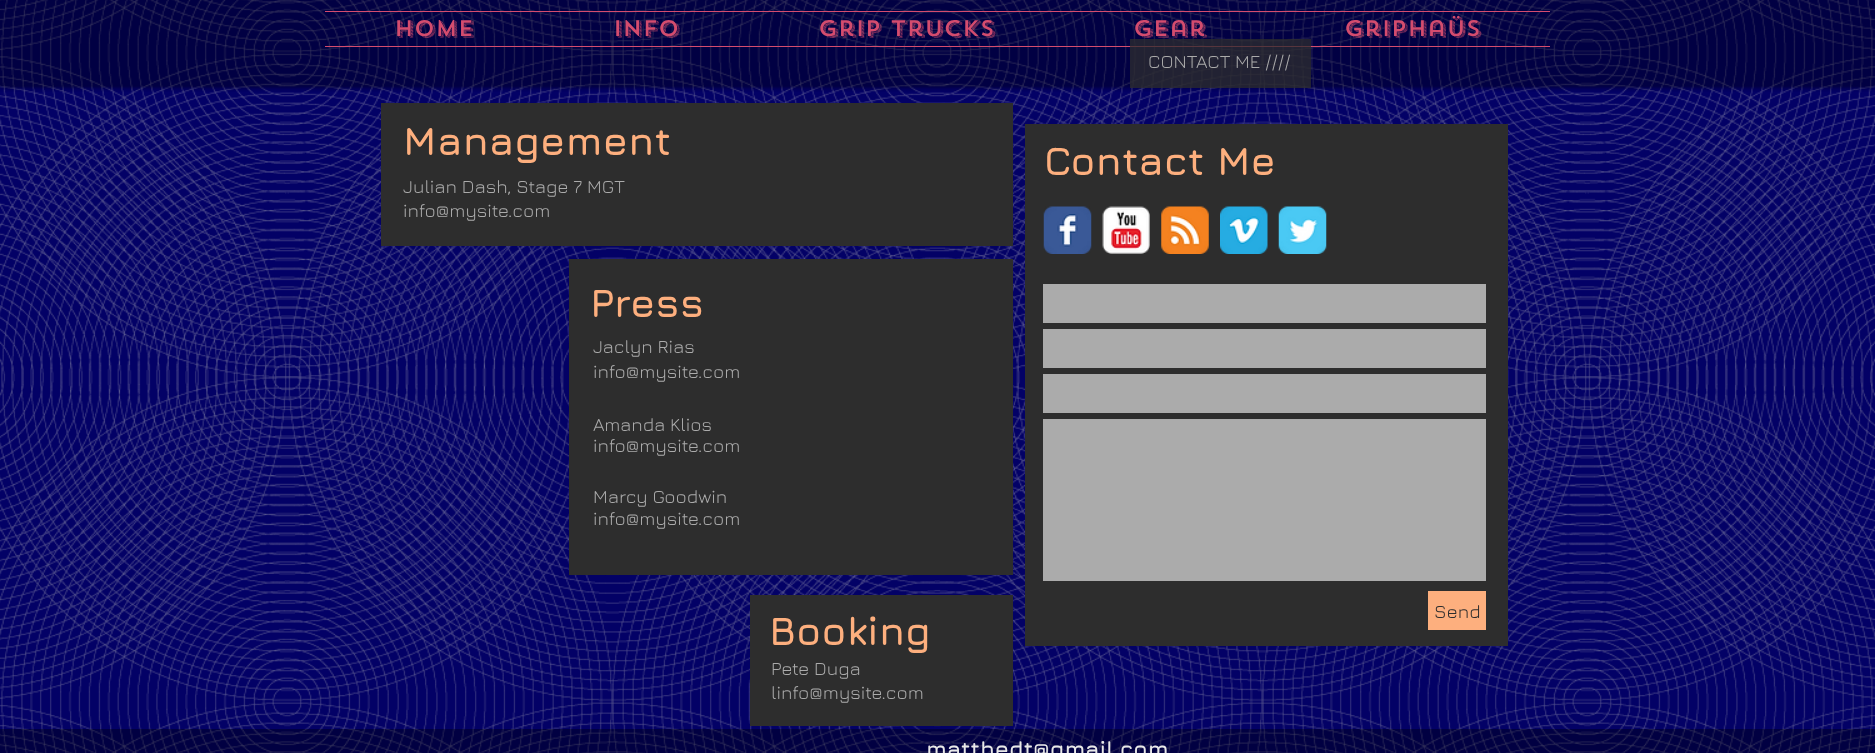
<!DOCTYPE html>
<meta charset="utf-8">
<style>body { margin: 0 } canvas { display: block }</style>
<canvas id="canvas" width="1875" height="753"></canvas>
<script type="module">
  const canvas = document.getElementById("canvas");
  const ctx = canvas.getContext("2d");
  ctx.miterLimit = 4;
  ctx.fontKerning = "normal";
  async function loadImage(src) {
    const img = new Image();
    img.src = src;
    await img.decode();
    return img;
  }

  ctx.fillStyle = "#030166";
  ctx.fillRect(0, 0, 1875, 753);
  ctx.drawImage(await loadImage("img1.png"), 0, 0, 1875, 753);
  ctx.save();
  ctx.beginPath();
  ctx.rect(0, 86, 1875, 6);
  ctx.clip();
  ctx.fillStyle = "rgba(0, 0, 0, 0.7)";
  ctx.filter = "blur(3px)";
  ctx.beginPath();
  ctx.rect(0, -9, 1875, 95);
  ctx.fill();
  ctx.filter = "none";
  ctx.restore();
  ctx.fillStyle = "rgba(0, 0, 0, 0.34)";
  ctx.fillRect(0, 0, 1875, 86);
  ctx.fillStyle = "#d44c6e";
  ctx.fillRect(325, 11, 1225, 1);
  ctx.fillRect(325, 46, 1225, 1);
  ctx.font = "500 22.5px 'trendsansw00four'";
  ctx.fillText("HOME", 394, 36);
  ctx.fillText("Info", 613, 36);
  ctx.fillText("Grip Trucks", 818, 36);
  ctx.fillText("Gear", 1133, 36);
  ctx.fillText("Griphaüs", 1344, 36);
  ctx.fillStyle = "rgba(45, 45, 45, 0.75)";
  ctx.fillRect(1130, 39, 181, 49);
  ctx.font = "18.75px Jura";
  ctx.fillStyle = "#ababab";
  ctx.fillText("CONTACT ME ////", 1148, 68);
  ctx.fillStyle = "#2d2d2d";
  ctx.fillRect(381, 103, 632, 143);
  ctx.font = "bold 40px Jura";
  ctx.fillStyle = "#fdaf7e";
  ctx.fillText("Management", 403, 155);
  ctx.font = "18.75px Jura";
  ctx.fillStyle = "#ababab";
  ctx.fillText("Julian Dash, Stage 7 MGT", 403, 193);
  ctx.fillText("info@mysite.com", 403, 217);
  ctx.fillStyle = "#2d2d2d";
  ctx.fillRect(1025, 124, 483, 522);
  ctx.font = "bold 40px Jura";
  ctx.fillStyle = "#fdaf7e";
  ctx.fillText("Contact Me", 1044, 175);
  ctx.drawImage(await loadImage("img2.png"), 1043, 206, 49, 48);
  ctx.drawImage(await loadImage("img3.png"), 1102, 206, 48, 48);
  ctx.drawImage(await loadImage("img4.png"), 1161, 206, 48, 48);
  ctx.drawImage(await loadImage("img5.png"), 1220, 206, 48, 48);
  ctx.drawImage(await loadImage("img6.png"), 1278, 206, 49, 48);
  ctx.fillStyle = "#ababab";
  ctx.fillRect(1043, 284, 443, 39);
  ctx.fillRect(1043, 329, 443, 39);
  ctx.fillRect(1043, 374, 443, 39);
  ctx.fillRect(1043, 419, 443, 162);
  ctx.fillStyle = "#fdaf7e";
  ctx.fillRect(1428, 591, 58, 39);
  ctx.font = "18.75px Jura";
  ctx.fillStyle = "#2d2d2d";
  ctx.fillText("Send", 1434, 618);
  ctx.fillRect(569, 259, 444, 316);
  ctx.font = "bold 40px Jura";
  ctx.fillStyle = "#fdaf7e";
  ctx.fillText("Press", 590, 317);
  ctx.font = "18.75px Jura";
  ctx.fillStyle = "#ababab";
  ctx.fillText("Jaclyn Rias", 593, 353);
  ctx.fillText("info@mysite.com", 593, 378);
  ctx.fillText("Amanda Klios", 593, 431);
  ctx.fillText("info@mysite.com", 593, 452);
  ctx.fillText("Marcy Goodwin", 593, 503);
  ctx.fillText("info@mysite.com", 593, 525);
  ctx.fillStyle = "#2d2d2d";
  ctx.fillRect(750, 595, 263, 131);
  ctx.font = "bold 40px Jura";
  ctx.fillStyle = "#fdaf7e";
  ctx.fillText("Booking", 769, 645);
  ctx.font = "18.75px Jura";
  ctx.fillStyle = "#ababab";
  ctx.fillText("Pete Duga", 771, 675);
  ctx.fillText("linfo@mysite.com", 771, 699);
  ctx.fillStyle = "rgba(0, 0, 0, 0.35)";
  ctx.fillRect(0, 729, 1875, 24);
  ctx.font = "bold 22.5px Jura";
  ctx.fillStyle = "#e8e8e8";
  ctx.fillText("matthedt@gmail.com", 926, 757);
</script>
